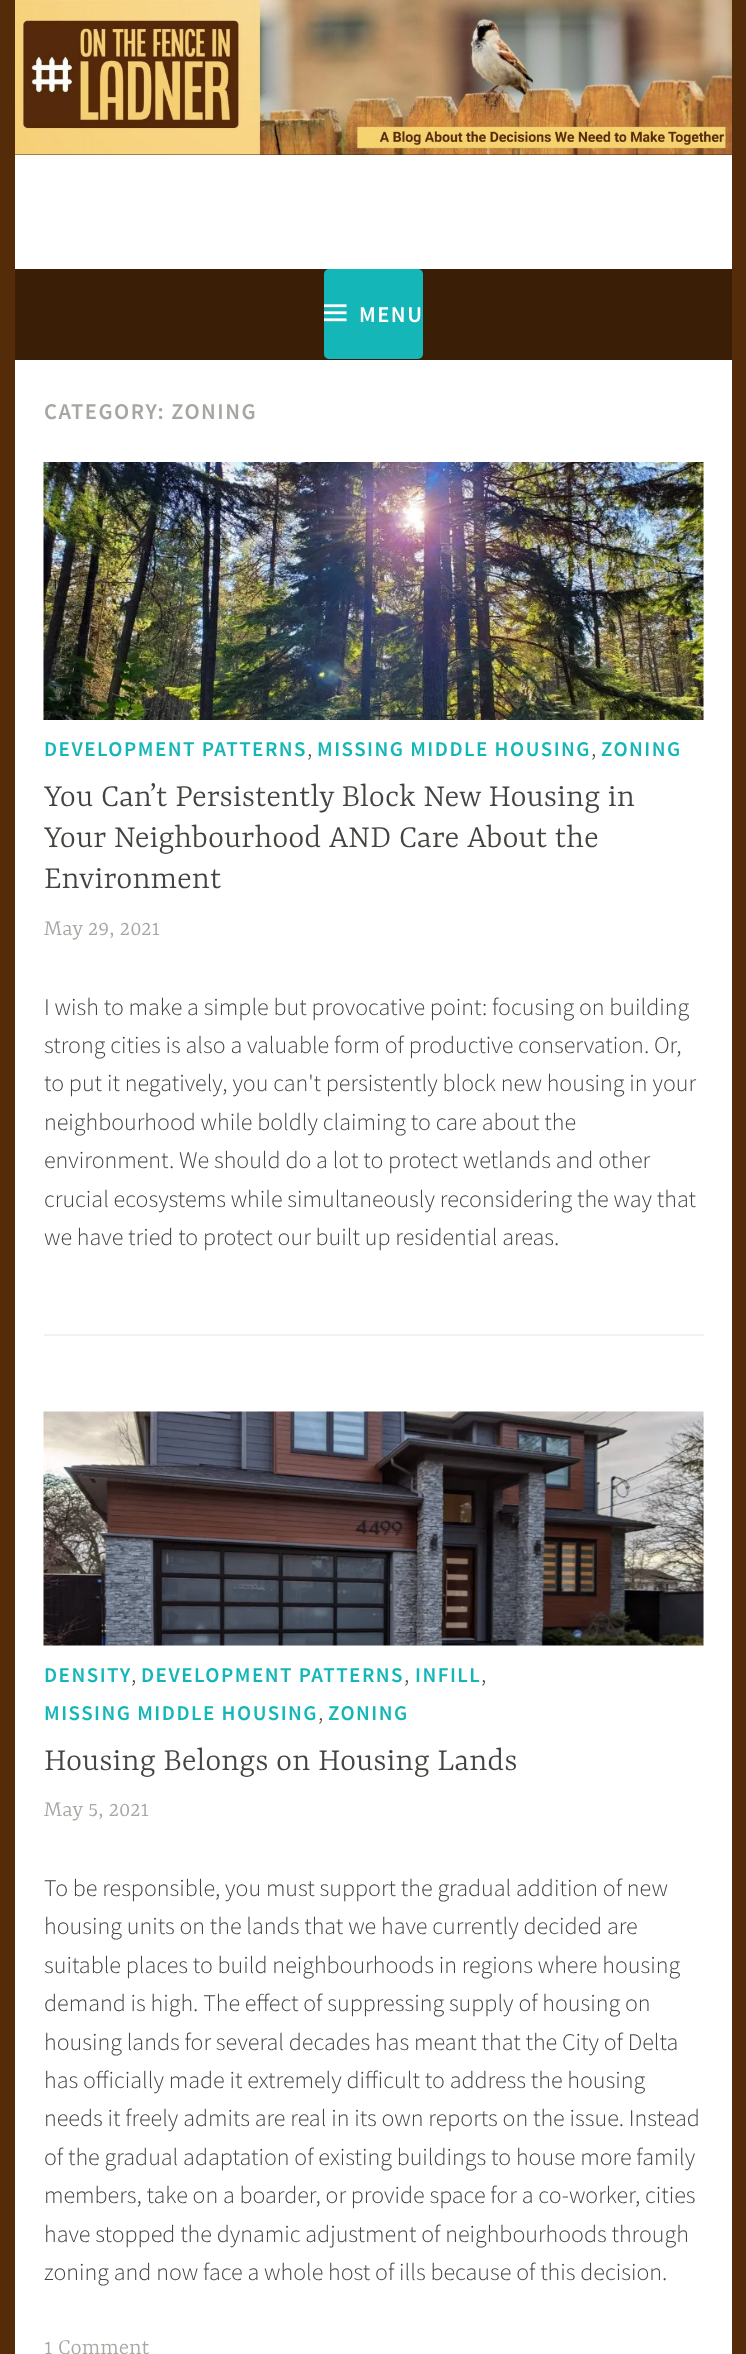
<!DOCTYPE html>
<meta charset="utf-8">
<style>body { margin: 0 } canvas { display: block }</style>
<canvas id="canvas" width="746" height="2354"></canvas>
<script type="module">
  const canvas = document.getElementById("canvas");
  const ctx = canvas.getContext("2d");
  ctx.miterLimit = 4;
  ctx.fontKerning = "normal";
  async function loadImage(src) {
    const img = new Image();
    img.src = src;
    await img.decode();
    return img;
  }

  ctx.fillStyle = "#552c09";
  ctx.fillRect(0, 0, 746, 2354);
  ctx.drawImage(await loadImage("img1.png"), 15, 0, 717, 155);
  ctx.fillStyle = "#ffffff";
  ctx.fillRect(15, 155, 717, 114);
  ctx.fillStyle = "#3b1e06";
  ctx.fillRect(15, 269, 717, 90);
  ctx.fillStyle = "#391d06";
  ctx.fillRect(15, 359, 717, 1);
  ctx.fillStyle = "#15b6b8";
  ctx.beginPath();
  ctx.roundRect(324, 269, 99, 90, 5);
  ctx.fill();
  ctx.drawImage(await loadImage("img2.png"), 324, 304, 23, 18);
  ctx.letterSpacing = "1.5px";
  ctx.font = "600 22.5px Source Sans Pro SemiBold";
  ctx.fillStyle = "#ffffff";
  ctx.fillText("MENU", 359, 322);
  ctx.fillRect(15, 360, 717, 1994);
  ctx.fillStyle = "#a8a6a1";
  ctx.fillText("CATEGORY: ZONING", 44, 419);
  ctx.fillStyle = "#f8f9f8";
  ctx.fillRect(703, 462, 1, 258);
  ctx.drawImage(await loadImage("img3.png"), 43, 462, 661, 258);
  ctx.font = "600 21px Source Sans Pro SemiBold";
  ctx.fillStyle = "#15b6b8";
  ctx.fillText("DEVELOPMENT PATTERNS", 44, 756);
  ctx.letterSpacing = "0px";
  ctx.font = "300 24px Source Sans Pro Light";
  ctx.fillStyle = "#444340";
  ctx.fillText(",", 307, 756);
  ctx.letterSpacing = "1.5px";
  ctx.font = "600 21px Source Sans Pro SemiBold";
  ctx.fillStyle = "#15b6b8";
  ctx.fillText("MISSING MIDDLE HOUSING", 317, 756);
  ctx.letterSpacing = "0px";
  ctx.font = "300 24px Source Sans Pro Light";
  ctx.fillStyle = "#444340";
  ctx.fillText(",", 591, 756);
  ctx.letterSpacing = "1.5px";
  ctx.font = "600 21px Source Sans Pro SemiBold";
  ctx.fillStyle = "#15b6b8";
  ctx.fillText("ZONING", 601, 756);
  ctx.letterSpacing = "0px";
  ctx.font = "300 34.5px Yrsa";
  ctx.fillStyle = "#444340";
  ctx.fillText("You Can’t Persistently Block New Housing in", 44, 806);
  ctx.fillText("Your Neighbourhood AND Care About the", 44, 847);
  ctx.fillText("Environment", 44, 888);
  ctx.font = "300 24px Yrsa";
  ctx.fillStyle = "#a8a6a1";
  ctx.fillText("May 29, 2021", 44, 935);
  ctx.font = "300 24px Source Sans Pro Light";
  ctx.fillStyle = "#444340";
  ctx.fillText("I wish to make a simple but provocative point: focusing on building", 44, 1015);
  ctx.fillText("strong cities is also a valuable form of productive conservation. Or,", 44, 1053);
  ctx.fillText("to put it negatively, you can't persistently block new housing in your", 44, 1091);
  ctx.fillText("neighbourhood while boldly claiming to care about the", 44, 1130);
  ctx.fillText("environment. We should do a lot to protect wetlands and other", 44, 1168);
  ctx.fillText("crucial ecosystems while simultaneously reconsidering the way that", 44, 1207);
  ctx.fillText("we have tried to protect our built up residential areas.", 44, 1245);
  ctx.fillStyle = "#f2f2f2";
  ctx.fillRect(44, 1334, 660, 2);
  ctx.fillStyle = "#f8f9f8";
  ctx.fillRect(44, 1412, 660, 234);
  ctx.drawImage(await loadImage("img4.png"), 43, 1411, 661, 235);
  ctx.letterSpacing = "1.5px";
  ctx.font = "600 21px Source Sans Pro SemiBold";
  ctx.fillStyle = "#15b6b8";
  ctx.fillText("DENSITY", 44, 1682);
  ctx.fillText("DEVELOPMENT PATTERNS", 141, 1682);
  ctx.fillText("INFILL", 415, 1682);
  ctx.letterSpacing = "0px";
  ctx.font = "300 24px Source Sans Pro Light";
  ctx.fillStyle = "#444340";
  ctx.fillText(",", 131, 1682);
  ctx.fillText(",", 404, 1682);
  ctx.fillText(",", 481, 1682);
  ctx.letterSpacing = "1.5px";
  ctx.font = "600 21px Source Sans Pro SemiBold";
  ctx.fillStyle = "#15b6b8";
  ctx.fillText("MISSING MIDDLE HOUSING", 44, 1720);
  ctx.letterSpacing = "0px";
  ctx.font = "300 24px Source Sans Pro Light";
  ctx.fillStyle = "#444340";
  ctx.fillText(",", 318, 1720);
  ctx.letterSpacing = "1.5px";
  ctx.font = "600 21px Source Sans Pro SemiBold";
  ctx.fillStyle = "#15b6b8";
  ctx.fillText("ZONING", 328, 1720);
  ctx.letterSpacing = "0px";
  ctx.font = "300 34.5px Yrsa";
  ctx.fillStyle = "#444340";
  ctx.fillText("Housing Belongs on Housing Lands", 44, 1770);
  ctx.font = "300 24px Yrsa";
  ctx.fillStyle = "#a8a6a1";
  ctx.fillText("May 5, 2021", 44, 1816);
  ctx.font = "300 24px Source Sans Pro Light";
  ctx.fillStyle = "#444340";
  ctx.fillText("To be responsible, you must support the gradual addition of new", 44, 1896);
  ctx.fillText("housing units on the lands that we have currently decided are", 44, 1934);
  ctx.fillText("suitable places to build neighbourhoods in regions where housing", 44, 1973);
  ctx.fillText("demand is high. The effect of suppressing supply of housing on", 44, 2011);
  ctx.fillText("housing lands for several decades has meant that the City of Delta", 44, 2050);
  ctx.fillText("has officially made it extremely difficult to address the housing", 44, 2088);
  ctx.fillText("needs it freely admits are real in its own reports on the issue. Instead", 44, 2126);
  ctx.fillText("of the gradual adaptation of existing buildings to house more family", 44, 2165);
  ctx.fillText("members, take on a boarder, or provide space for a co-worker, cities", 44, 2203);
  ctx.fillText("have stopped the dynamic adjustment of neighbourhoods through", 44, 2242);
  ctx.fillText("zoning and now face a whole host of ills because of this decision.", 44, 2280);
  ctx.font = "300 24px Yrsa";
  ctx.fillStyle = "#a8a6a1";
  ctx.fillText("1 Comment", 44, 2354);
</script>
